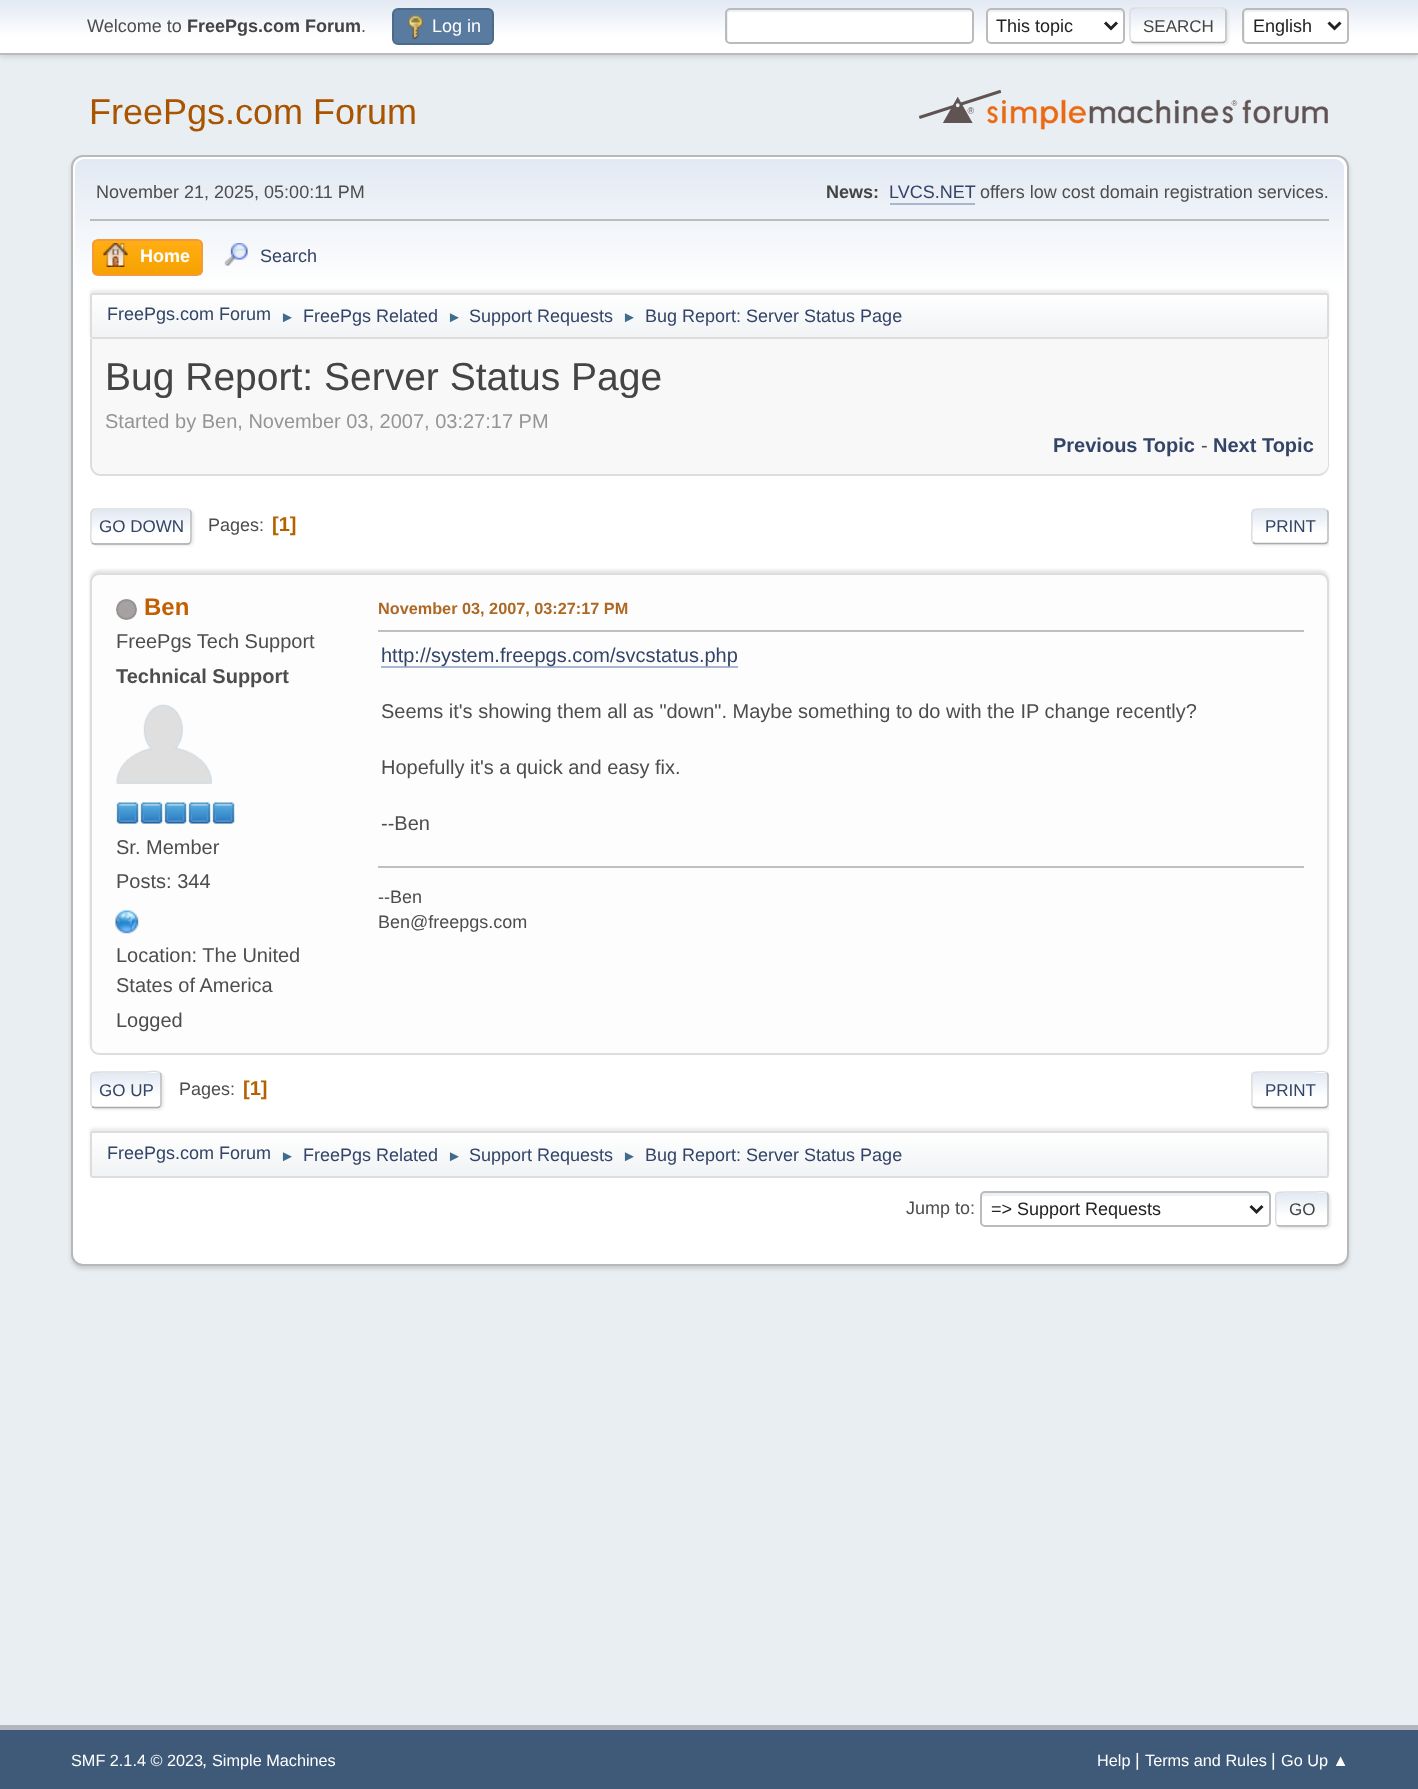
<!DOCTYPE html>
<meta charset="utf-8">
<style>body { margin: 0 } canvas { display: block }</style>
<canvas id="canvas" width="1418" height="1789"></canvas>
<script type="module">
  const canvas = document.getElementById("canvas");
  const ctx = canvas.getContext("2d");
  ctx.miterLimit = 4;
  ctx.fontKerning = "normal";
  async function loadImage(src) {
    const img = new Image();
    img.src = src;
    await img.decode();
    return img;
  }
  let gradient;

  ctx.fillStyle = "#e9eef2";
  ctx.fillRect(0, 0, 1418, 1789);
  ctx.fillStyle = "rgba(0, 0, 0, 0.16)";
  ctx.filter = "blur(3px)";
  ctx.beginPath();
  ctx.rect(0, 2, 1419, 54);
  ctx.fill();
  ctx.filter = "none";
  gradient = ctx.createLinearGradient(710, 0, 710, 53);
  gradient.addColorStop(0, "#e2e9f3");
  gradient.addColorStop(0.7, "#ffffff");
  ctx.fillStyle = gradient;
  ctx.fillRect(0, 0, 1418, 53);
  ctx.fillStyle = "#bbbbbb";
  ctx.fillRect(0, 53, 1418, 2);
  ctx.font = "18px Liberation Sans";
  ctx.fillStyle = "#4d4d4d";
  ctx.fillText("Welcome to", 87, 32);
  ctx.font = "bold 18px Liberation Sans";
  ctx.fillStyle = "#444444";
  ctx.fillText("FreePgs.com Forum", 187, 32);
  ctx.font = "18px Liberation Sans";
  ctx.fillStyle = "#4d4d4d";
  ctx.fillText(".", 361, 32);
  ctx.fillStyle = "#597b9f";
  ctx.beginPath();
  ctx.roundRect(393, 9, 100, 35, 5);
  ctx.fill();
  ctx.strokeStyle = "#4a6b8c";
  ctx.lineWidth = 2;
  ctx.stroke();
  ctx.drawImage(await loadImage("img1.png"), 407, 15, 17, 24);
  ctx.fillStyle = "#ffffff";
  ctx.fillText("Log in", 432, 32);
  ctx.beginPath();
  ctx.roundRect(725, 8, 249, 36, 5);
  ctx.fill();
  ctx.fillStyle = "#ecf1f8";
  ctx.beginPath();
  ctx.moveTo(730, 12);
  ctx.lineTo(972, 12);
  ctx.bezierCurveTo(972, 10, 971, 9, 969, 9);
  ctx.lineTo(729, 9);
  ctx.bezierCurveTo(727, 9, 726, 10, 726, 12);
  ctx.lineTo(726, 39);
  ctx.bezierCurveTo(726, 40, 727, 41, 728, 42);
  ctx.lineTo(728, 15);
  ctx.bezierCurveTo(728, 13, 729, 12, 730, 12);
  ctx.closePath();
  ctx.fill();
  ctx.beginPath();
  ctx.roundRect(726, 9, 247, 34, 4);
  ctx.strokeStyle = "#bbbbbb";
  ctx.stroke();
  ctx.fillStyle = "#ffffff";
  ctx.beginPath();
  ctx.roundRect(986, 8, 139, 36, 5);
  ctx.fill();
  ctx.fillStyle = "#ecf1f8";
  ctx.beginPath();
  ctx.moveTo(992, 12);
  ctx.bezierCurveTo(1005, 12, 1122, 11, 1124, 13);
  ctx.lineTo(1124, 12);
  ctx.bezierCurveTo(1124, 10, 1123, 9, 1121, 9);
  ctx.lineTo(990, 9);
  ctx.bezierCurveTo(988, 9, 987, 10, 987, 12);
  ctx.lineTo(987, 39);
  ctx.bezierCurveTo(987, 40, 987, 41, 988, 41);
  ctx.lineTo(988, 15);
  ctx.bezierCurveTo(988, 13, 990, 12, 992, 12);
  ctx.closePath();
  ctx.fill();
  ctx.beginPath();
  ctx.roundRect(987, 9, 137, 34, 4);
  ctx.stroke();
  ctx.beginPath();
  ctx.moveTo(1105, 22.5);
  ctx.lineTo(1111, 28.5);
  ctx.lineTo(1117, 22.5);
  ctx.strokeStyle = "#222222";
  ctx.lineWidth = 3;
  ctx.stroke();
  ctx.fillStyle = "#222222";
  ctx.fillText("This topic", 996, 32);
  ctx.fillStyle = "rgba(221, 221, 221, 0.57)";
  ctx.filter = "blur(1px)";
  ctx.beginPath();
  ctx.roundRect(1131, 9, 98, 36, 5);
  ctx.fill();
  ctx.filter = "none";
  ctx.save();
  ctx.beginPath();
  ctx.roundRect(1130, 8, 97, 36, 5);
  ctx.clip();
  gradient = ctx.createLinearGradient(1178, -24, 1178, 9);
  gradient.addColorStop(0, "#e2e9f3");
  gradient.addColorStop(0.7, "#ffffff");
  ctx.fillStyle = gradient;
  ctx.fillRect(1130, 8, 97, 1);
  gradient = ctx.createLinearGradient(1178, 9, 1178, 42);
  gradient.addColorStop(0, "#e2e9f3");
  gradient.addColorStop(0.7, "#ffffff");
  ctx.fillStyle = gradient;
  ctx.fillRect(1130, 9, 97, 33);
  gradient = ctx.createLinearGradient(1178, 42, 1178, 75);
  gradient.addColorStop(0, "#e2e9f3");
  gradient.addColorStop(0.7, "#ffffff");
  ctx.fillStyle = gradient;
  ctx.fillRect(1130, 42, 97, 2);
  ctx.restore();
  ctx.beginPath();
  ctx.moveTo(1225, 9.5);
  ctx.bezierCurveTo(1226, 10, 1226, 11, 1226, 12);
  ctx.lineTo(1226, 39);
  ctx.bezierCurveTo(1226, 40, 1226, 41, 1225, 41.5);
  ctx.strokeStyle = "#bbbbbb";
  ctx.lineWidth = 1.5;
  ctx.stroke();
  ctx.beginPath();
  ctx.moveTo(1225, 41.5);
  ctx.lineTo(1223, 42.5);
  ctx.lineTo(1133.5, 42.5);
  ctx.lineTo(1131.5, 41.5);
  ctx.strokeStyle = "#aaaaaa";
  ctx.stroke();
  ctx.beginPath();
  ctx.moveTo(1131.5, 41.5);
  ctx.bezierCurveTo(1129, 39.5, 1130, 28.5, 1130, 25.5);
  ctx.bezierCurveTo(1130, 5, 1127, 8, 1149, 8);
  ctx.lineTo(1222.5, 8);
  ctx.lineTo(1225, 9.5);
  ctx.strokeStyle = "#dddddd";
  ctx.stroke();
  ctx.font = "17px Liberation Sans";
  ctx.fillStyle = "#444444";
  ctx.fillText("SEARCH", 1143, 32);
  ctx.fillStyle = "#ffffff";
  ctx.beginPath();
  ctx.roundRect(1242, 8, 107, 36, 5);
  ctx.fill();
  ctx.fillStyle = "#ecf1f8";
  ctx.beginPath();
  ctx.moveTo(1248, 12);
  ctx.bezierCurveTo(1258, 12, 1346, 11, 1347, 12);
  ctx.bezierCurveTo(1347, 6, 1335, 9, 1328, 9);
  ctx.lineTo(1263, 9);
  ctx.bezierCurveTo(1241, 9, 1244, 5, 1244, 26);
  ctx.bezierCurveTo(1244, 28, 1243, 39, 1245, 41);
  ctx.lineTo(1245, 15);
  ctx.bezierCurveTo(1245, 13, 1246, 12, 1248, 12);
  ctx.closePath();
  ctx.fill();
  ctx.beginPath();
  ctx.roundRect(1243, 9, 105, 34, 4);
  ctx.strokeStyle = "#bbbbbb";
  ctx.lineWidth = 2;
  ctx.stroke();
  ctx.beginPath();
  ctx.moveTo(1328.5, 22.5);
  ctx.lineTo(1334.5, 28.5);
  ctx.lineTo(1340.5, 22.5);
  ctx.strokeStyle = "#222222";
  ctx.lineWidth = 3;
  ctx.stroke();
  ctx.font = "18px Liberation Sans";
  ctx.fillStyle = "#222222";
  ctx.fillText("English", 1253, 32);
  ctx.font = "36px Liberation Sans";
  ctx.fillStyle = "#a85400";
  ctx.fillText("FreePgs.com Forum", 89, 124);
  ctx.drawImage(await loadImage("img2.png"), 918, 89, 410, 41);
  ctx.fillStyle = "rgba(0, 0, 0, 0.14)";
  ctx.filter = "blur(2px)";
  ctx.beginPath();
  ctx.roundRect(71, 158, 1278, 1111, 12);
  ctx.fill();
  ctx.filter = "none";
  ctx.fillStyle = "#ffffff";
  ctx.beginPath();
  ctx.roundRect(72, 156, 1276, 1109, 11);
  ctx.fill();
  ctx.strokeStyle = "#b8b8b8";
  ctx.lineWidth = 2;
  ctx.stroke();
  gradient = ctx.createLinearGradient(710, 159, 710, 342);
  gradient.addColorStop(0, "#e2e9f3");
  gradient.addColorStop(0.7, "#ffffff");
  ctx.fillStyle = gradient;
  ctx.beginPath();
  ctx.roundRect(75, 159, 1269, 183, [9, 9, 0, 0]);
  ctx.fill();
  ctx.fillStyle = "#bbbbbb";
  ctx.fillRect(90, 219, 1239, 2);
  ctx.font = "18px Liberation Sans";
  ctx.fillStyle = "#4d4d4d";
  ctx.fillText("November 21, 2025, 05:00:11 PM", 96, 198);
  ctx.font = "bold 18px Liberation Sans";
  ctx.fillStyle = "#444444";
  ctx.fillText("News:", 826, 198);
  ctx.font = "18px Liberation Sans";
  ctx.fillStyle = "#334466";
  ctx.fillText("LVCS.NET", 889, 198);
  ctx.fillStyle = "#a8b6cf";
  ctx.fillRect(890, 203, 85, 2);
  ctx.fillStyle = "#4d4d4d";
  ctx.fillText("offers low cost domain registration services.", 980, 198);
  ctx.save();
  ctx.beginPath();
  ctx.roundRect(92, 239, 111, 37, 6);
  ctx.clip();
  gradient = ctx.createLinearGradient(147, 240, 147, 275);
  gradient.addColorStop(0, "#ffae14");
  gradient.addColorStop(1, "#f5a100");
  ctx.fillStyle = gradient;
  ctx.fillRect(92, 240, 111, 35);
  ctx.restore();
  ctx.beginPath();
  ctx.roundRect(93, 240, 109, 35, 5);
  ctx.strokeStyle = "#f49a3a";
  ctx.stroke();
  ctx.drawImage(await loadImage("img3.png"), 103, 243, 25, 24);
  ctx.font = "bold 18px Liberation Sans";
  ctx.fillStyle = "#ffffff";
  ctx.fillText("Home", 140, 262);
  ctx.drawImage(await loadImage("img4.png"), 224, 243, 24, 23);
  ctx.font = "18px Liberation Sans";
  ctx.fillStyle = "#334466";
  ctx.fillText("Search", 260, 262);
  ctx.fillStyle = "rgba(0, 0, 0, 0.08)";
  ctx.filter = "blur(1.5px)";
  ctx.beginPath();
  ctx.roundRect(90, 290, 1239, 46, 3);
  ctx.fill();
  ctx.filter = "none";
  ctx.save();
  ctx.beginPath();
  ctx.roundRect(90, 293, 1239, 46, 3);
  ctx.clip();
  gradient = ctx.createLinearGradient(710, 294, 710, 338);
  gradient.addColorStop(0, "#ffffff");
  gradient.addColorStop(0.95, "#f1f3f5");
  ctx.fillStyle = gradient;
  ctx.fillRect(90, 294, 1239, 44);
  ctx.restore();
  ctx.beginPath();
  ctx.roundRect(91, 294, 1237, 44, 2);
  ctx.strokeStyle = "#dddddd";
  ctx.stroke();
  ctx.fillStyle = "#334466";
  ctx.fillText("FreePgs.com Forum", 107, 320);
  ctx.font = "15px Liberation Sans";
  ctx.fillStyle = "#3f6b8c";
  ctx.fillText("►", 280, 322);
  ctx.font = "18px Liberation Sans";
  ctx.fillStyle = "#334466";
  ctx.fillText("FreePgs Related", 303, 322);
  ctx.font = "15px Liberation Sans";
  ctx.fillStyle = "#3f6b8c";
  ctx.fillText("►", 447, 322);
  ctx.font = "18px Liberation Sans";
  ctx.fillStyle = "#334466";
  ctx.fillText("Support Requests", 469, 322);
  ctx.font = "15px Liberation Sans";
  ctx.fillStyle = "#3f6b8c";
  ctx.fillText("►", 622, 322);
  ctx.font = "18px Liberation Sans";
  ctx.fillStyle = "#334466";
  ctx.fillText("Bug Report: Server Status Page", 645, 322);
  ctx.fillStyle = "#f8f8f8";
  ctx.beginPath();
  ctx.roundRect(90, 339, 1239, 137, [0, 0, 11, 11]);
  ctx.fill();
  ctx.fillStyle = "#dddddd";
  ctx.beginPath();
  ctx.moveTo(90, 339);
  ctx.lineTo(1329, 339);
  ctx.lineTo(1329, 465);
  ctx.bezierCurveTo(1329, 471, 1324, 476, 1318, 476);
  ctx.lineTo(100, 476);
  ctx.bezierCurveTo(95, 476, 90, 471, 90, 465);
  ctx.closePath();
  ctx.moveTo(92, 339);
  ctx.lineTo(1328, 339);
  ctx.lineTo(1328, 465);
  ctx.bezierCurveTo(1328, 470, 1323, 474, 1318, 474);
  ctx.lineTo(100, 474);
  ctx.bezierCurveTo(96, 474, 92, 470, 92, 465);
  ctx.closePath();
  ctx.fill("evenodd");
  ctx.font = "39px Liberation Sans";
  ctx.fillStyle = "#444444";
  ctx.fillText("Bug Report: Server Status Page", 105, 390);
  ctx.font = "20px Liberation Sans";
  ctx.fillStyle = "#959595";
  ctx.fillText("Started by Ben, November 03, 2007, 03:27:17 PM", 105, 428);
  ctx.font = "bold 20px Liberation Sans";
  ctx.fillStyle = "#334466";
  ctx.fillText("Previous Topic", 1053, 452);
  ctx.font = "20px Liberation Sans";
  ctx.fillStyle = "#4d4d4d";
  ctx.fillText("-", 1201, 452);
  ctx.font = "bold 20px Liberation Sans";
  ctx.fillStyle = "#334466";
  ctx.fillText("Next Topic", 1213, 452);
  ctx.fillStyle = "rgba(221, 221, 221, 0.57)";
  ctx.filter = "blur(1px)";
  ctx.beginPath();
  ctx.roundRect(92, 510, 102, 36, 5);
  ctx.fill();
  ctx.filter = "none";
  ctx.save();
  ctx.beginPath();
  ctx.roundRect(90, 509, 102, 36, 5);
  ctx.clip();
  gradient = ctx.createLinearGradient(141, 510, 141, 543);
  gradient.addColorStop(0, "#e2e9f3");
  gradient.addColorStop(0.7, "#ffffff");
  ctx.fillStyle = gradient;
  ctx.fillRect(90, 510, 102, 33);
  gradient = ctx.createLinearGradient(141, 543, 141, 576);
  gradient.addColorStop(0, "#e2e9f3");
  gradient.addColorStop(0.7, "#ffffff");
  ctx.fillStyle = gradient;
  ctx.fillRect(90, 543, 102, 2);
  ctx.restore();
  ctx.beginPath();
  ctx.moveTo(190, 510.5);
  ctx.bezierCurveTo(191, 511, 191, 512, 191, 513);
  ctx.lineTo(191, 540);
  ctx.bezierCurveTo(191, 541, 191, 542, 190, 542.5);
  ctx.strokeStyle = "#bbbbbb";
  ctx.lineWidth = 1.5;
  ctx.stroke();
  ctx.beginPath();
  ctx.moveTo(190, 542.5);
  ctx.bezierCurveTo(189.5, 543.5, 188.5, 544, 187.5, 544);
  ctx.lineTo(94.5, 544);
  ctx.bezierCurveTo(93.5, 544, 92.5, 543.5, 92, 542.5);
  ctx.strokeStyle = "#aaaaaa";
  ctx.stroke();
  ctx.save();
  ctx.beginPath();
  ctx.rect(90, 498, 1239, 57);
  ctx.clip();
  ctx.beginPath();
  ctx.moveTo(92, 542.5);
  ctx.bezierCurveTo(89.5, 540, 91, 534, 91, 531);
  ctx.lineTo(91, 517.5);
  ctx.bezierCurveTo(91, 514.5, 90, 509.5, 94.5, 509);
  ctx.lineTo(187.5, 509);
  ctx.lineTo(190, 510.5);
  ctx.strokeStyle = "#dddddd";
  ctx.stroke();
  ctx.restore();
  ctx.font = "17px Liberation Sans";
  ctx.fillStyle = "#334466";
  ctx.fillText("GO DOWN", 99, 532);
  ctx.font = "18px Liberation Sans";
  ctx.fillStyle = "#4d4d4d";
  ctx.fillText("Pages:", 208, 531);
  ctx.font = "bold 20px Liberation Sans";
  ctx.fillStyle = "#b46100";
  ctx.fillText("[1]", 272, 531);
  ctx.save();
  ctx.beginPath();
  ctx.rect(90, 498, 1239, 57);
  ctx.clip();
  ctx.fillStyle = "rgba(221, 221, 221, 0.57)";
  ctx.filter = "blur(1px)";
  ctx.beginPath();
  ctx.roundRect(1253, 510, 78, 36, 5);
  ctx.fill();
  ctx.filter = "none";
  ctx.restore();
  ctx.save();
  ctx.beginPath();
  ctx.roundRect(1251, 509, 78, 36, 5);
  ctx.clip();
  gradient = ctx.createLinearGradient(1290, 510, 1290, 543);
  gradient.addColorStop(0, "#e2e9f3");
  gradient.addColorStop(0.7, "#ffffff");
  ctx.fillStyle = gradient;
  ctx.fillRect(1251, 510, 78, 33);
  gradient = ctx.createLinearGradient(1290, 543, 1290, 576);
  gradient.addColorStop(0, "#e2e9f3");
  gradient.addColorStop(0.7, "#ffffff");
  ctx.fillStyle = gradient;
  ctx.fillRect(1251, 543, 78, 2);
  ctx.restore();
  ctx.beginPath();
  ctx.moveTo(1327, 510.5);
  ctx.bezierCurveTo(1328, 511, 1328, 512, 1328, 513);
  ctx.lineTo(1328, 540);
  ctx.bezierCurveTo(1328, 541, 1328, 542, 1327, 542.5);
  ctx.strokeStyle = "#bbbbbb";
  ctx.stroke();
  ctx.beginPath();
  ctx.moveTo(1327, 542.5);
  ctx.lineTo(1325, 543.5);
  ctx.lineTo(1255, 543.5);
  ctx.lineTo(1253, 542.5);
  ctx.strokeStyle = "#aaaaaa";
  ctx.stroke();
  ctx.beginPath();
  ctx.moveTo(1253, 542.5);
  ctx.bezierCurveTo(1250.5, 540.5, 1252, 529.5, 1252, 526.5);
  ctx.bezierCurveTo(1252, 507.5, 1248.5, 509, 1267, 509);
  ctx.lineTo(1324.5, 509);
  ctx.lineTo(1327, 510.5);
  ctx.strokeStyle = "#dddddd";
  ctx.stroke();
  ctx.font = "17px Liberation Sans";
  ctx.fillStyle = "#334466";
  ctx.fillText("PRINT", 1265, 532);
  ctx.fillStyle = "rgba(0, 0, 0, 0.1)";
  ctx.filter = "blur(1.5px)";
  ctx.beginPath();
  ctx.roundRect(90, 570, 1239, 482, 9);
  ctx.fill();
  ctx.filter = "none";
  ctx.fillStyle = "#fdfdfd";
  ctx.beginPath();
  ctx.roundRect(91, 574, 1237, 480, 8);
  ctx.fill();
  ctx.lineWidth = 2;
  ctx.stroke();
  ctx.fillStyle = "#a7a2a2";
  ctx.beginPath();
  ctx.arc(126.5, 609.5, 9.5, 0, Math.PI * 2);
  ctx.fill();
  ctx.strokeStyle = "#969292";
  ctx.stroke();
  ctx.font = "bold 24px Liberation Sans";
  ctx.fillStyle = "#c06002";
  ctx.fillText("Ben", 144, 615);
  ctx.font = "20px Liberation Sans";
  ctx.fillStyle = "#4d4d4d";
  ctx.fillText("FreePgs Tech Support", 116, 648);
  ctx.font = "bold 20px Liberation Sans";
  ctx.fillText("Technical Support", 116, 683);
  ctx.drawImage(await loadImage("img5.png"), 116, 704, 96, 80);
  ctx.drawImage(await loadImage("img6.png"), 116, 802, 23, 22);
  ctx.drawImage(await loadImage("img6.png"), 140, 802, 23, 22);
  ctx.drawImage(await loadImage("img6.png"), 164, 802, 23, 22);
  ctx.drawImage(await loadImage("img6.png"), 188, 802, 23, 22);
  ctx.drawImage(await loadImage("img6.png"), 212, 802, 23, 22);
  ctx.font = "20px Liberation Sans";
  ctx.fillText("Sr. Member", 116, 854);
  ctx.fillText("Posts: 344", 116, 888);
  ctx.drawImage(await loadImage("img7.png"), 115, 910, 24, 24);
  ctx.fillText("Location: The United", 116, 962);
  ctx.fillText("States of America", 116, 992);
  ctx.fillText("Logged", 116, 1027);
  ctx.font = "bold 16.25px Liberation Sans";
  ctx.fillStyle = "#ad6825";
  ctx.fillText("November 03, 2007, 03:27:17 PM", 378, 614);
  ctx.fillStyle = "#bfbfbf";
  ctx.fillRect(378, 630, 926, 2);
  ctx.fillStyle = "#a8b6cf";
  ctx.fillRect(381, 666, 357, 2);
  ctx.font = "20px Liberation Sans";
  ctx.fillStyle = "#334466";
  ctx.fillText("http://system.freepgs.com/svcstatus.php", 381, 662);
  ctx.fillStyle = "#4d4d4d";
  ctx.fillText("Seems it's showing them all as \"down\". Maybe something to do with the IP change recently?", 381, 718);
  ctx.fillText("Hopefully it's a quick and easy fix.", 381, 774);
  ctx.fillText("--Ben", 381, 830);
  ctx.fillStyle = "#bfbfbf";
  ctx.fillRect(378, 866, 926, 2);
  ctx.font = "18px Liberation Sans";
  ctx.fillStyle = "#4d4d4d";
  ctx.fillText("--Ben", 378, 903);
  ctx.fillText("Ben@freepgs.com", 378, 928);
  ctx.fillStyle = "rgba(221, 221, 221, 0.57)";
  ctx.filter = "blur(1px)";
  ctx.beginPath();
  ctx.roundRect(92, 1073, 72, 37, 5);
  ctx.fill();
  ctx.filter = "none";
  ctx.fillStyle = "#ffffff";
  ctx.beginPath();
  ctx.roundRect(90, 1071, 72, 38, 5);
  ctx.fill();
  ctx.save();
  ctx.beginPath();
  ctx.roundRect(90, 1071, 72, 38, 5);
  ctx.clip();
  gradient = ctx.createLinearGradient(126, 1073, 126, 1107);
  gradient.addColorStop(0, "#e2e9f3");
  gradient.addColorStop(0.7, "#ffffff");
  ctx.fillStyle = gradient;
  ctx.fillRect(90, 1073, 72, 34);
  gradient = ctx.createLinearGradient(126, 1107, 126, 1142);
  gradient.addColorStop(0, "#e2e9f3");
  gradient.addColorStop(0.7, "#ffffff");
  ctx.fillStyle = gradient;
  ctx.fillRect(90, 1107, 72, 2);
  ctx.restore();
  ctx.beginPath();
  ctx.moveTo(160, 1073);
  ctx.bezierCurveTo(161, 1073.5, 161, 1074.5, 161, 1075.5);
  ctx.lineTo(161, 1104);
  ctx.bezierCurveTo(161, 1105, 161, 1106, 160, 1106.5);
  ctx.strokeStyle = "#bbbbbb";
  ctx.lineWidth = 1.5;
  ctx.stroke();
  ctx.beginPath();
  ctx.moveTo(160, 1106.5);
  ctx.lineTo(158, 1107.5);
  ctx.lineTo(94, 1107.5);
  ctx.lineTo(92, 1106.5);
  ctx.strokeStyle = "#aaaaaa";
  ctx.stroke();
  ctx.save();
  ctx.beginPath();
  ctx.rect(90, 1061, 1239, 58);
  ctx.clip();
  ctx.beginPath();
  ctx.moveTo(92, 1106.5);
  ctx.bezierCurveTo(90, 1105, 91, 1101.5, 91, 1099);
  ctx.lineTo(91, 1090);
  ctx.bezierCurveTo(91, 1071, 87, 1072, 105, 1072);
  ctx.lineTo(147, 1072);
  ctx.bezierCurveTo(147, 1072, 157.5, 1070, 160, 1073);
  ctx.strokeStyle = "#dddddd";
  ctx.stroke();
  ctx.restore();
  ctx.font = "17px Liberation Sans";
  ctx.fillStyle = "#334466";
  ctx.fillText("GO UP", 99, 1096);
  ctx.font = "18px Liberation Sans";
  ctx.fillStyle = "#4d4d4d";
  ctx.fillText("Pages:", 179, 1095);
  ctx.font = "bold 20px Liberation Sans";
  ctx.fillStyle = "#b46100";
  ctx.fillText("[1]", 243, 1095);
  ctx.save();
  ctx.beginPath();
  ctx.rect(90, 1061, 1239, 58);
  ctx.clip();
  ctx.fillStyle = "rgba(221, 221, 221, 0.57)";
  ctx.filter = "blur(1px)";
  ctx.beginPath();
  ctx.roundRect(1253, 1073, 78, 37, 5);
  ctx.fill();
  ctx.filter = "none";
  ctx.restore();
  ctx.fillStyle = "#ffffff";
  ctx.beginPath();
  ctx.roundRect(1251, 1071, 78, 38, 5);
  ctx.fill();
  ctx.save();
  ctx.beginPath();
  ctx.roundRect(1251, 1071, 78, 38, 5);
  ctx.clip();
  gradient = ctx.createLinearGradient(1290, 1073, 1290, 1107);
  gradient.addColorStop(0, "#e2e9f3");
  gradient.addColorStop(0.7, "#ffffff");
  ctx.fillStyle = gradient;
  ctx.fillRect(1251, 1073, 78, 34);
  gradient = ctx.createLinearGradient(1290, 1107, 1290, 1142);
  gradient.addColorStop(0, "#e2e9f3");
  gradient.addColorStop(0.7, "#ffffff");
  ctx.fillStyle = gradient;
  ctx.fillRect(1251, 1107, 78, 2);
  ctx.restore();
  ctx.beginPath();
  ctx.moveTo(1327, 1073);
  ctx.bezierCurveTo(1328, 1073.5, 1328, 1074.5, 1328, 1075.5);
  ctx.lineTo(1328, 1104);
  ctx.bezierCurveTo(1328, 1105, 1328, 1106, 1327, 1106.5);
  ctx.strokeStyle = "#bbbbbb";
  ctx.stroke();
  ctx.beginPath();
  ctx.moveTo(1327, 1106.5);
  ctx.lineTo(1325, 1107.5);
  ctx.lineTo(1255, 1107.5);
  ctx.lineTo(1253, 1106.5);
  ctx.strokeStyle = "#aaaaaa";
  ctx.stroke();
  ctx.beginPath();
  ctx.moveTo(1253, 1106.5);
  ctx.bezierCurveTo(1251, 1105, 1252, 1101.5, 1252, 1099);
  ctx.lineTo(1252, 1090);
  ctx.bezierCurveTo(1252, 1070, 1248, 1072, 1267, 1072);
  ctx.lineTo(1313, 1072);
  ctx.bezierCurveTo(1314, 1072, 1324.5, 1070, 1327, 1073);
  ctx.strokeStyle = "#dddddd";
  ctx.stroke();
  ctx.font = "17px Liberation Sans";
  ctx.fillStyle = "#334466";
  ctx.fillText("PRINT", 1265, 1096);
  ctx.fillStyle = "rgba(0, 0, 0, 0.08)";
  ctx.filter = "blur(1.5px)";
  ctx.beginPath();
  ctx.roundRect(90, 1128, 1239, 47, 3);
  ctx.fill();
  ctx.filter = "none";
  ctx.save();
  ctx.beginPath();
  ctx.roundRect(90, 1131, 1239, 47, 3);
  ctx.clip();
  gradient = ctx.createLinearGradient(710, 1133, 710, 1176);
  gradient.addColorStop(0, "#ffffff");
  gradient.addColorStop(0.95, "#f1f3f5");
  ctx.fillStyle = gradient;
  ctx.fillRect(90, 1133, 1239, 43);
  ctx.restore();
  ctx.beginPath();
  ctx.roundRect(91, 1132, 1237, 45, 2);
  ctx.lineWidth = 2;
  ctx.stroke();
  ctx.font = "18px Liberation Sans";
  ctx.fillStyle = "#334466";
  ctx.fillText("FreePgs.com Forum", 107, 1159);
  ctx.font = "15px Liberation Sans";
  ctx.fillStyle = "#3f6b8c";
  ctx.fillText("►", 280, 1161);
  ctx.font = "18px Liberation Sans";
  ctx.fillStyle = "#334466";
  ctx.fillText("FreePgs Related", 303, 1161);
  ctx.font = "15px Liberation Sans";
  ctx.fillStyle = "#3f6b8c";
  ctx.fillText("►", 447, 1161);
  ctx.font = "18px Liberation Sans";
  ctx.fillStyle = "#334466";
  ctx.fillText("Support Requests", 469, 1161);
  ctx.font = "15px Liberation Sans";
  ctx.fillStyle = "#3f6b8c";
  ctx.fillText("►", 622, 1161);
  ctx.font = "18px Liberation Sans";
  ctx.fillStyle = "#334466";
  ctx.fillText("Bug Report: Server Status Page", 645, 1161);
  ctx.fillStyle = "#4d4d4d";
  ctx.fillText("Jump to:", 906, 1214);
  ctx.fillStyle = "#ecf1f8";
  ctx.beginPath();
  ctx.moveTo(986, 1196);
  ctx.lineTo(1269, 1196);
  ctx.bezierCurveTo(1269, 1194, 1268, 1193, 1266, 1193);
  ctx.lineTo(984, 1193);
  ctx.bezierCurveTo(982, 1193, 981, 1194, 981, 1196);
  ctx.lineTo(981, 1223);
  ctx.bezierCurveTo(981, 1224, 981, 1225, 982, 1225);
  ctx.lineTo(982, 1198);
  ctx.bezierCurveTo(982, 1197, 984, 1196, 986, 1196);
  ctx.closePath();
  ctx.fill();
  ctx.beginPath();
  ctx.roundRect(981, 1192, 289, 34, 4);
  ctx.strokeStyle = "#bbbbbb";
  ctx.stroke();
  ctx.beginPath();
  ctx.moveTo(1250.5, 1206);
  ctx.lineTo(1256.5, 1212);
  ctx.lineTo(1262.5, 1206);
  ctx.strokeStyle = "#222222";
  ctx.lineWidth = 3;
  ctx.stroke();
  ctx.fillStyle = "#222222";
  ctx.fillText("=> Support Requests", 991, 1215);
  ctx.fillStyle = "rgba(221, 221, 221, 0.57)";
  ctx.filter = "blur(1px)";
  ctx.beginPath();
  ctx.roundRect(1277, 1193, 54, 36, 5);
  ctx.fill();
  ctx.filter = "none";
  ctx.fillStyle = "#ffffff";
  ctx.beginPath();
  ctx.roundRect(1275, 1191, 54, 36, 5);
  ctx.fill();
  ctx.save();
  ctx.beginPath();
  ctx.roundRect(1275, 1191, 54, 36, 5);
  ctx.clip();
  gradient = ctx.createLinearGradient(1302, 1193, 1302, 1226);
  gradient.addColorStop(0, "#e2e9f3");
  gradient.addColorStop(0.7, "#ffffff");
  ctx.fillStyle = gradient;
  ctx.fillRect(1275, 1193, 54, 33);
  ctx.restore();
  ctx.beginPath();
  ctx.moveTo(1327, 1193);
  ctx.bezierCurveTo(1328, 1193.5, 1328, 1194.5, 1328, 1195.5);
  ctx.lineTo(1328, 1222.5);
  ctx.bezierCurveTo(1328, 1223.5, 1328, 1224.5, 1327, 1225);
  ctx.strokeStyle = "#bbbbbb";
  ctx.lineWidth = 1.5;
  ctx.stroke();
  ctx.beginPath();
  ctx.moveTo(1327, 1225);
  ctx.bezierCurveTo(1326.5, 1226, 1325.5, 1226, 1324.5, 1226);
  ctx.lineTo(1279.5, 1226);
  ctx.bezierCurveTo(1278.5, 1226, 1277.5, 1226, 1277, 1225);
  ctx.strokeStyle = "#aaaaaa";
  ctx.stroke();
  ctx.beginPath();
  ctx.moveTo(1277, 1225);
  ctx.bezierCurveTo(1274.5, 1223, 1276, 1212, 1276, 1209);
  ctx.bezierCurveTo(1276, 1192.5, 1272, 1192, 1287, 1192);
  ctx.lineTo(1317, 1192);
  ctx.bezierCurveTo(1318.5, 1192, 1325, 1190.5, 1327, 1193);
  ctx.strokeStyle = "#dddddd";
  ctx.stroke();
  ctx.font = "17px Liberation Sans";
  ctx.fillStyle = "#444444";
  ctx.fillText("GO", 1289, 1215);
  ctx.fillStyle = "#3e5a78";
  ctx.fillRect(0, 1730, 1418, 59);
  ctx.fillStyle = "#b2b6bd";
  ctx.fillRect(0, 1725, 1418, 5);
  ctx.font = "16.25px Liberation Sans";
  ctx.fillStyle = "#ffffff";
  ctx.fillText("SMF 2.1.4 © 2023", 71, 1766);
  ctx.font = "18px Liberation Sans";
  ctx.fillText(",", 202, 1766);
  ctx.font = "16.25px Liberation Sans";
  ctx.fillText("Simple Machines", 212, 1766);
  ctx.fillText("Help", 1097, 1766);
  ctx.font = "18px Liberation Sans";
  ctx.fillText("|", 1135, 1766);
  ctx.font = "16.25px Liberation Sans";
  ctx.fillText("Terms and Rules", 1145, 1766);
  ctx.font = "18px Liberation Sans";
  ctx.fillText("|", 1271, 1766);
  ctx.font = "16.25px Liberation Sans";
  ctx.fillText("Go Up ▲", 1281, 1766);
</script>
